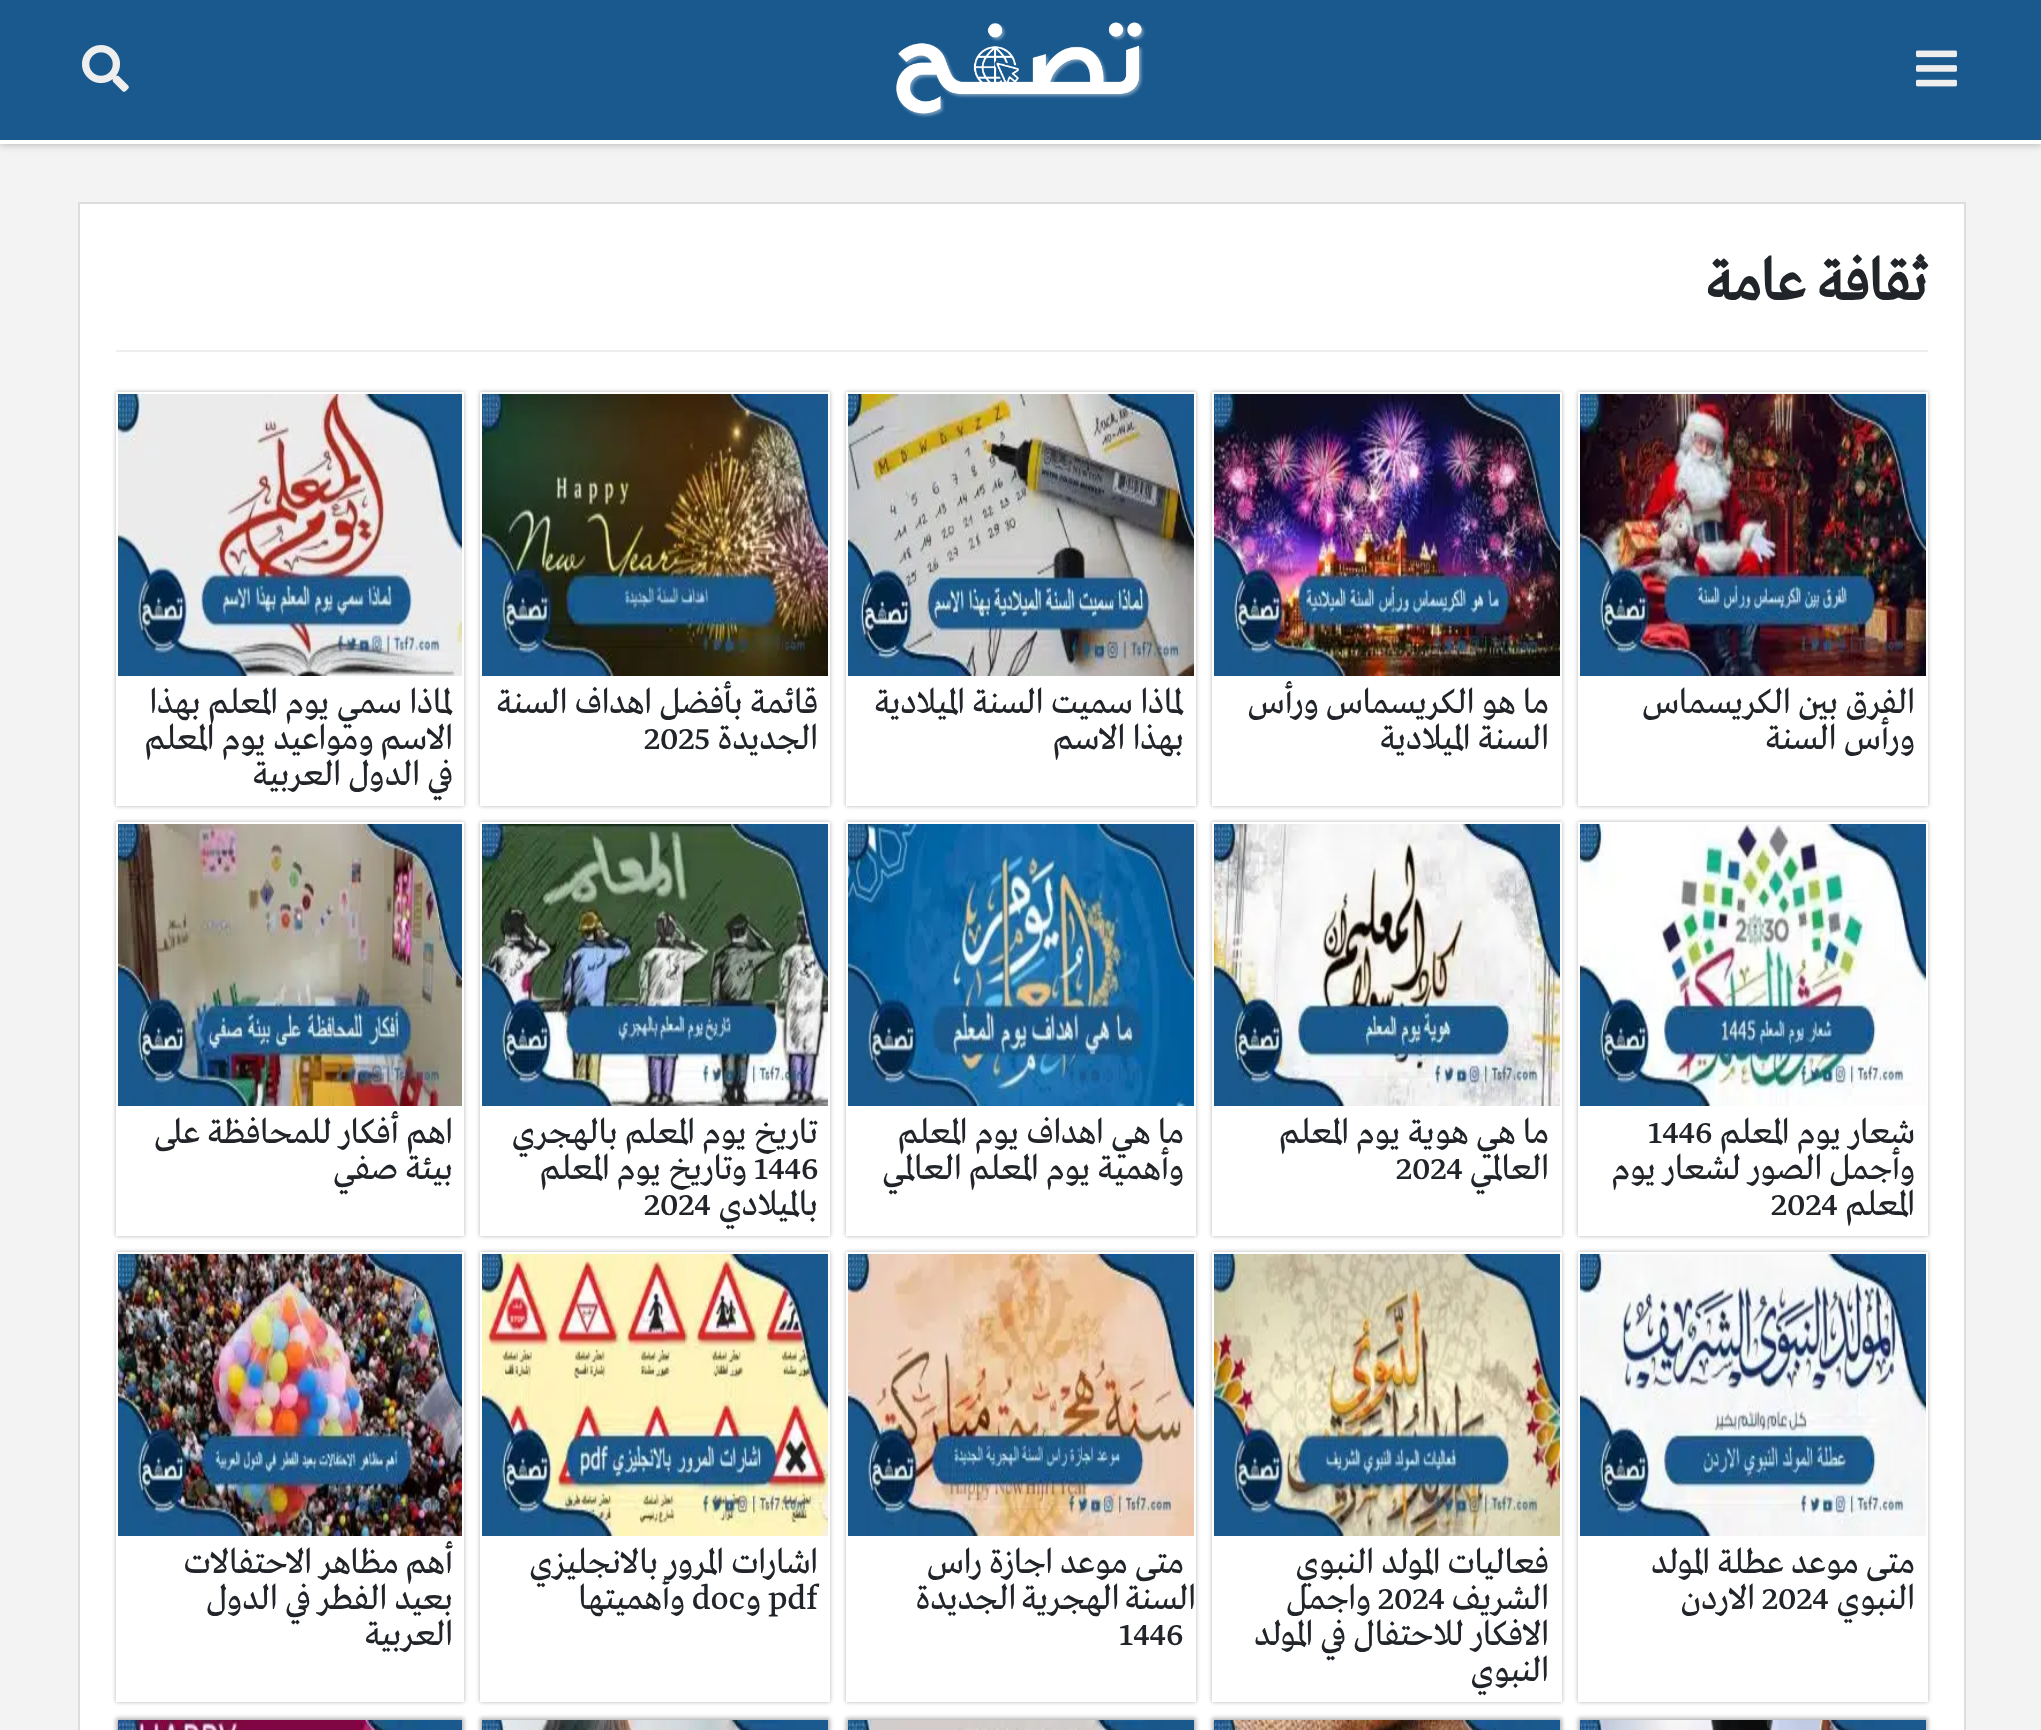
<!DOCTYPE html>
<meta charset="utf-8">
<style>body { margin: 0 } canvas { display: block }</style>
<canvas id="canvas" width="2041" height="1730"></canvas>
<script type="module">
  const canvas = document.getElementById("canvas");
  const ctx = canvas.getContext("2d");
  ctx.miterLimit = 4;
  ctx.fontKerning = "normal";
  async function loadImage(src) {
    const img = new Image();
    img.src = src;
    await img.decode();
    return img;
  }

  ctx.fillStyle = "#f3f3f3";
  ctx.fillRect(0, 0, 2041, 1730);
  ctx.fillStyle = "rgba(0, 0, 0, 0.3)";
  ctx.filter = "blur(4px)";
  ctx.beginPath();
  ctx.rect(0, 0, 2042, 144);
  ctx.fill();
  ctx.filter = "none";
  ctx.fillStyle = "#ffffff";
  ctx.fillRect(0, 140, 2041, 4);
  ctx.fillStyle = "#1a598e";
  ctx.fillRect(0, 0, 2041, 140);
  ctx.drawImage(await loadImage("img1.png"), 1916, 50, 41, 37);
  ctx.drawImage(await loadImage("img2.png"), 896, 22, 250, 96);
  ctx.drawImage(await loadImage("img3.png"), 82, 45, 47, 47);
  ctx.fillStyle = "#ffffff";
  ctx.beginPath();
  ctx.rect(79, 203, 1886, 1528);
  ctx.fill();
  ctx.strokeStyle = "#dddddd";
  ctx.lineWidth = 2;
  ctx.stroke();
  ctx.fillStyle = "#eeeeee";
  ctx.fillRect(116, 350, 1812, 2);
  ctx.direction = "rtl";
  ctx.font = "bold 60.5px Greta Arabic";
  ctx.fillStyle = "#212529";
  ctx.fillText("ثقافة عامة", 1927, 300);
  ctx.save();
  ctx.beginPath();
  ctx.moveTo(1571, 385);
  ctx.lineTo(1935, 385);
  ctx.lineTo(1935, 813);
  ctx.lineTo(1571, 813);
  ctx.closePath();
  ctx.moveTo(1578, 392);
  ctx.lineTo(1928, 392);
  ctx.lineTo(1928, 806);
  ctx.lineTo(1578, 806);
  ctx.closePath();
  ctx.clip("evenodd");
  ctx.fillStyle = "rgba(0, 0, 0, 0.3)";
  ctx.filter = "blur(2px)";
  ctx.beginPath();
  ctx.rect(1578, 392, 350, 414);
  ctx.fill();
  ctx.filter = "none";
  ctx.restore();
  ctx.drawImage(await loadImage("img4.png"), 1580, 394, 346, 282);
  ctx.font = "36px Greta Arabic";
  ctx.fillText("الفرق بين الكريسماس", 1915, 713);
  ctx.fillText("ورأس السنة", 1915, 749);
  ctx.save();
  ctx.beginPath();
  ctx.moveTo(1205, 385);
  ctx.lineTo(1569, 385);
  ctx.lineTo(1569, 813);
  ctx.lineTo(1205, 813);
  ctx.closePath();
  ctx.moveTo(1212, 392);
  ctx.lineTo(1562, 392);
  ctx.lineTo(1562, 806);
  ctx.lineTo(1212, 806);
  ctx.closePath();
  ctx.clip("evenodd");
  ctx.fillStyle = "rgba(0, 0, 0, 0.3)";
  ctx.filter = "blur(2px)";
  ctx.beginPath();
  ctx.rect(1212, 392, 350, 414);
  ctx.fill();
  ctx.filter = "none";
  ctx.restore();
  ctx.drawImage(await loadImage("img5.png"), 1214, 394, 346, 282);
  ctx.fillText("ما هو الكريسماس ورأس", 1549, 713);
  ctx.fillText("السنة الميلادية", 1549, 749);
  ctx.save();
  ctx.beginPath();
  ctx.moveTo(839, 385);
  ctx.lineTo(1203, 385);
  ctx.lineTo(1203, 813);
  ctx.lineTo(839, 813);
  ctx.closePath();
  ctx.moveTo(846, 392);
  ctx.lineTo(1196, 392);
  ctx.lineTo(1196, 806);
  ctx.lineTo(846, 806);
  ctx.closePath();
  ctx.clip("evenodd");
  ctx.fillStyle = "rgba(0, 0, 0, 0.3)";
  ctx.filter = "blur(2px)";
  ctx.beginPath();
  ctx.rect(846, 392, 350, 414);
  ctx.fill();
  ctx.filter = "none";
  ctx.restore();
  ctx.drawImage(await loadImage("img6.png"), 848, 394, 346, 282);
  ctx.fillText("لماذا سميت السنة الميلادية", 1184, 713);
  ctx.fillText("بهذا الاسم", 1184, 749);
  ctx.save();
  ctx.beginPath();
  ctx.moveTo(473, 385);
  ctx.lineTo(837, 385);
  ctx.lineTo(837, 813);
  ctx.lineTo(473, 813);
  ctx.closePath();
  ctx.moveTo(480, 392);
  ctx.lineTo(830, 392);
  ctx.lineTo(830, 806);
  ctx.lineTo(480, 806);
  ctx.closePath();
  ctx.clip("evenodd");
  ctx.fillStyle = "rgba(0, 0, 0, 0.3)";
  ctx.filter = "blur(2px)";
  ctx.beginPath();
  ctx.rect(480, 392, 350, 414);
  ctx.fill();
  ctx.filter = "none";
  ctx.restore();
  ctx.drawImage(await loadImage("img7.png"), 482, 394, 346, 282);
  ctx.fillText("قائمة بأفضل اهداف السنة", 818, 713);
  ctx.fillText("الجديدة", 818, 749);
  ctx.direction = "ltr";
  ctx.fillText("2025", 644, 749);
  ctx.save();
  ctx.beginPath();
  ctx.moveTo(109, 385);
  ctx.lineTo(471, 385);
  ctx.lineTo(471, 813);
  ctx.lineTo(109, 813);
  ctx.closePath();
  ctx.moveTo(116, 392);
  ctx.lineTo(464, 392);
  ctx.lineTo(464, 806);
  ctx.lineTo(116, 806);
  ctx.closePath();
  ctx.clip("evenodd");
  ctx.fillStyle = "rgba(0, 0, 0, 0.3)";
  ctx.filter = "blur(2px)";
  ctx.beginPath();
  ctx.rect(116, 392, 348, 414);
  ctx.fill();
  ctx.filter = "none";
  ctx.restore();
  ctx.drawImage(await loadImage("img8.png"), 118, 394, 344, 282);
  ctx.direction = "rtl";
  ctx.fillText("لماذا سمي يوم المعلم بهذا", 453, 713);
  ctx.fillText("الاسم ومواعيد يوم المعلم", 453, 749);
  ctx.fillText("في الدول العربية", 453, 785);
  ctx.save();
  ctx.beginPath();
  ctx.moveTo(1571, 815);
  ctx.lineTo(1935, 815);
  ctx.lineTo(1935, 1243);
  ctx.lineTo(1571, 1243);
  ctx.closePath();
  ctx.moveTo(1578, 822);
  ctx.lineTo(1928, 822);
  ctx.lineTo(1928, 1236);
  ctx.lineTo(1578, 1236);
  ctx.closePath();
  ctx.clip("evenodd");
  ctx.fillStyle = "rgba(0, 0, 0, 0.3)";
  ctx.filter = "blur(2px)";
  ctx.beginPath();
  ctx.rect(1578, 822, 350, 414);
  ctx.fill();
  ctx.filter = "none";
  ctx.restore();
  ctx.drawImage(await loadImage("img9.png"), 1580, 824, 346, 282);
  ctx.fillText("شعار يوم المعلم", 1915, 1143);
  ctx.direction = "ltr";
  ctx.fillText("1446", 1648, 1143);
  ctx.direction = "rtl";
  ctx.fillText("وأجمل الصور لشعار يوم", 1915, 1179);
  ctx.fillText("المعلم", 1915, 1215);
  ctx.direction = "ltr";
  ctx.fillText("2024", 1771, 1215);
  ctx.save();
  ctx.beginPath();
  ctx.moveTo(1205, 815);
  ctx.lineTo(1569, 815);
  ctx.lineTo(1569, 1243);
  ctx.lineTo(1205, 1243);
  ctx.closePath();
  ctx.moveTo(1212, 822);
  ctx.lineTo(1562, 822);
  ctx.lineTo(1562, 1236);
  ctx.lineTo(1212, 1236);
  ctx.closePath();
  ctx.clip("evenodd");
  ctx.fillStyle = "rgba(0, 0, 0, 0.3)";
  ctx.filter = "blur(2px)";
  ctx.beginPath();
  ctx.rect(1212, 822, 350, 414);
  ctx.fill();
  ctx.filter = "none";
  ctx.restore();
  ctx.drawImage(await loadImage("img10.png"), 1214, 824, 346, 282);
  ctx.direction = "rtl";
  ctx.fillText("ما هي هوية يوم المعلم", 1549, 1143);
  ctx.fillText("العالمي", 1549, 1179);
  ctx.direction = "ltr";
  ctx.fillText("2024", 1396, 1179);
  ctx.save();
  ctx.beginPath();
  ctx.moveTo(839, 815);
  ctx.lineTo(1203, 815);
  ctx.lineTo(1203, 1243);
  ctx.lineTo(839, 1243);
  ctx.closePath();
  ctx.moveTo(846, 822);
  ctx.lineTo(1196, 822);
  ctx.lineTo(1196, 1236);
  ctx.lineTo(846, 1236);
  ctx.closePath();
  ctx.clip("evenodd");
  ctx.fillStyle = "rgba(0, 0, 0, 0.3)";
  ctx.filter = "blur(2px)";
  ctx.beginPath();
  ctx.rect(846, 822, 350, 414);
  ctx.fill();
  ctx.filter = "none";
  ctx.restore();
  ctx.drawImage(await loadImage("img11.png"), 848, 824, 346, 282);
  ctx.direction = "rtl";
  ctx.fillText("ما هي اهداف يوم المعلم", 1184, 1143);
  ctx.fillText("وأهمية يوم المعلم العالمي", 1184, 1179);
  ctx.save();
  ctx.beginPath();
  ctx.moveTo(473, 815);
  ctx.lineTo(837, 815);
  ctx.lineTo(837, 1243);
  ctx.lineTo(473, 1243);
  ctx.closePath();
  ctx.moveTo(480, 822);
  ctx.lineTo(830, 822);
  ctx.lineTo(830, 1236);
  ctx.lineTo(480, 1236);
  ctx.closePath();
  ctx.clip("evenodd");
  ctx.fillStyle = "rgba(0, 0, 0, 0.3)";
  ctx.filter = "blur(2px)";
  ctx.beginPath();
  ctx.rect(480, 822, 350, 414);
  ctx.fill();
  ctx.filter = "none";
  ctx.restore();
  ctx.drawImage(await loadImage("img12.png"), 482, 824, 346, 282);
  ctx.fillText("تاريخ يوم المعلم بالهجري", 818, 1143);
  ctx.direction = "ltr";
  ctx.fillText("1446", 754, 1179);
  ctx.direction = "rtl";
  ctx.fillText("وتاريخ يوم المعلم", 747, 1179);
  ctx.fillText("بالميلادي", 818, 1215);
  ctx.direction = "ltr";
  ctx.fillText("2024", 644, 1215);
  ctx.save();
  ctx.beginPath();
  ctx.moveTo(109, 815);
  ctx.lineTo(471, 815);
  ctx.lineTo(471, 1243);
  ctx.lineTo(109, 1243);
  ctx.closePath();
  ctx.moveTo(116, 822);
  ctx.lineTo(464, 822);
  ctx.lineTo(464, 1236);
  ctx.lineTo(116, 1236);
  ctx.closePath();
  ctx.clip("evenodd");
  ctx.fillStyle = "rgba(0, 0, 0, 0.3)";
  ctx.filter = "blur(2px)";
  ctx.beginPath();
  ctx.rect(116, 822, 348, 414);
  ctx.fill();
  ctx.filter = "none";
  ctx.restore();
  ctx.drawImage(await loadImage("img13.png"), 118, 824, 344, 282);
  ctx.direction = "rtl";
  ctx.fillText("اهم أفكار للمحافظة على", 453, 1143);
  ctx.fillText("بيئة صفي", 453, 1179);
  ctx.save();
  ctx.beginPath();
  ctx.moveTo(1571, 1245);
  ctx.lineTo(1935, 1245);
  ctx.lineTo(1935, 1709);
  ctx.lineTo(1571, 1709);
  ctx.closePath();
  ctx.moveTo(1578, 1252);
  ctx.lineTo(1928, 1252);
  ctx.lineTo(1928, 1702);
  ctx.lineTo(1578, 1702);
  ctx.closePath();
  ctx.clip("evenodd");
  ctx.fillStyle = "rgba(0, 0, 0, 0.3)";
  ctx.filter = "blur(2px)";
  ctx.beginPath();
  ctx.rect(1578, 1252, 350, 450);
  ctx.fill();
  ctx.filter = "none";
  ctx.restore();
  ctx.drawImage(await loadImage("img14.png"), 1580, 1254, 346, 282);
  ctx.fillText("متى موعد عطلة المولد", 1915, 1573);
  ctx.fillText("النبوي", 1915, 1609);
  ctx.direction = "ltr";
  ctx.fillText("2024", 1762, 1609);
  ctx.direction = "rtl";
  ctx.fillText("الاردن", 1755, 1609);
  ctx.save();
  ctx.beginPath();
  ctx.moveTo(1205, 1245);
  ctx.lineTo(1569, 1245);
  ctx.lineTo(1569, 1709);
  ctx.lineTo(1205, 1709);
  ctx.closePath();
  ctx.moveTo(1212, 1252);
  ctx.lineTo(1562, 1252);
  ctx.lineTo(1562, 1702);
  ctx.lineTo(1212, 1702);
  ctx.closePath();
  ctx.clip("evenodd");
  ctx.fillStyle = "rgba(0, 0, 0, 0.3)";
  ctx.filter = "blur(2px)";
  ctx.beginPath();
  ctx.rect(1212, 1252, 350, 450);
  ctx.fill();
  ctx.filter = "none";
  ctx.restore();
  ctx.drawImage(await loadImage("img15.png"), 1214, 1254, 346, 282);
  ctx.fillText("فعاليات المولد النبوي", 1549, 1573);
  ctx.fillText("الشريف", 1549, 1609);
  ctx.direction = "ltr";
  ctx.fillText("2024", 1378, 1609);
  ctx.direction = "rtl";
  ctx.fillText("واجمل", 1371, 1609);
  ctx.fillText("الافكار للاحتفال في المولد", 1549, 1645);
  ctx.fillText("النبوي", 1549, 1681);
  ctx.save();
  ctx.beginPath();
  ctx.moveTo(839, 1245);
  ctx.lineTo(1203, 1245);
  ctx.lineTo(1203, 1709);
  ctx.lineTo(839, 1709);
  ctx.closePath();
  ctx.moveTo(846, 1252);
  ctx.lineTo(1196, 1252);
  ctx.lineTo(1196, 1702);
  ctx.lineTo(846, 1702);
  ctx.closePath();
  ctx.clip("evenodd");
  ctx.fillStyle = "rgba(0, 0, 0, 0.3)";
  ctx.filter = "blur(2px)";
  ctx.beginPath();
  ctx.rect(846, 1252, 350, 450);
  ctx.fill();
  ctx.filter = "none";
  ctx.restore();
  ctx.drawImage(await loadImage("img16.png"), 848, 1254, 346, 282);
  ctx.fillText("متى موعد اجازة راس", 1184, 1573);
  ctx.save();
  ctx.beginPath();
  ctx.rect(846, 1252, 350, 450);
  ctx.clip();
  ctx.wordSpacing = "-2px";
  ctx.fillText("السنة الهجرية الجديدة", 1196, 1609);
  ctx.restore();
  ctx.direction = "ltr";
  ctx.fillText("1446", 1119, 1645);
  ctx.save();
  ctx.beginPath();
  ctx.moveTo(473, 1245);
  ctx.lineTo(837, 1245);
  ctx.lineTo(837, 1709);
  ctx.lineTo(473, 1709);
  ctx.closePath();
  ctx.moveTo(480, 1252);
  ctx.lineTo(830, 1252);
  ctx.lineTo(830, 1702);
  ctx.lineTo(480, 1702);
  ctx.closePath();
  ctx.clip("evenodd");
  ctx.fillStyle = "rgba(0, 0, 0, 0.3)";
  ctx.filter = "blur(2px)";
  ctx.beginPath();
  ctx.rect(480, 1252, 350, 450);
  ctx.fill();
  ctx.filter = "none";
  ctx.restore();
  ctx.drawImage(await loadImage("img17.png"), 482, 1254, 346, 282);
  ctx.direction = "rtl";
  ctx.fillText("اشارات المرور بالانجليزي", 818, 1573);
  ctx.direction = "ltr";
  ctx.fillText("pdf", 768, 1609);
  ctx.direction = "rtl";
  ctx.fillText("و", 761, 1609);
  ctx.direction = "ltr";
  ctx.fillText("doc", 692, 1609);
  ctx.direction = "rtl";
  ctx.fillText("وأهميتها", 685, 1609);
  ctx.save();
  ctx.beginPath();
  ctx.moveTo(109, 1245);
  ctx.lineTo(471, 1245);
  ctx.lineTo(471, 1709);
  ctx.lineTo(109, 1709);
  ctx.closePath();
  ctx.moveTo(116, 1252);
  ctx.lineTo(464, 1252);
  ctx.lineTo(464, 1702);
  ctx.lineTo(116, 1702);
  ctx.closePath();
  ctx.clip("evenodd");
  ctx.fillStyle = "rgba(0, 0, 0, 0.3)";
  ctx.filter = "blur(2px)";
  ctx.beginPath();
  ctx.rect(116, 1252, 348, 450);
  ctx.fill();
  ctx.filter = "none";
  ctx.restore();
  ctx.drawImage(await loadImage("img18.png"), 118, 1254, 344, 282);
  ctx.fillText("أهم مظاهر الاحتفالات", 453, 1573);
  ctx.fillText("بعيد الفطر في الدول", 453, 1609);
  ctx.fillText("العربية", 453, 1645);
  ctx.fillStyle = "rgba(0, 0, 0, 0.3)";
  ctx.filter = "blur(2px)";
  ctx.beginPath();
  ctx.rect(1578, 1718, 350, 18);
  ctx.fill();
  ctx.filter = "none";
  ctx.drawImage(await loadImage("img19.png"), 1580, 1720, 346, 10);
  ctx.filter = "blur(2px)";
  ctx.beginPath();
  ctx.rect(1212, 1718, 350, 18);
  ctx.fill();
  ctx.filter = "none";
  ctx.drawImage(await loadImage("img20.png"), 1214, 1720, 346, 10);
  ctx.filter = "blur(2px)";
  ctx.beginPath();
  ctx.rect(846, 1718, 350, 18);
  ctx.fill();
  ctx.filter = "none";
  ctx.drawImage(await loadImage("img21.png"), 848, 1720, 346, 10);
  ctx.filter = "blur(2px)";
  ctx.beginPath();
  ctx.rect(480, 1718, 350, 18);
  ctx.fill();
  ctx.filter = "none";
  ctx.drawImage(await loadImage("img22.png"), 482, 1720, 346, 10);
  ctx.filter = "blur(2px)";
  ctx.beginPath();
  ctx.rect(116, 1718, 348, 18);
  ctx.fill();
  ctx.filter = "none";
  ctx.drawImage(await loadImage("img23.png"), 118, 1720, 344, 10);
</script>
